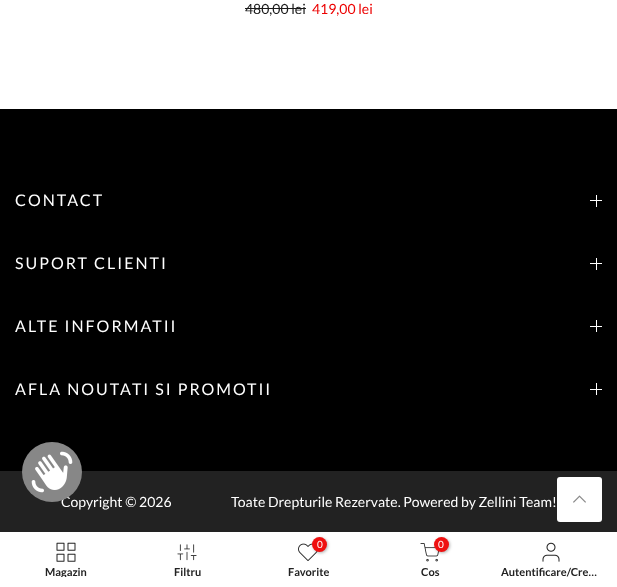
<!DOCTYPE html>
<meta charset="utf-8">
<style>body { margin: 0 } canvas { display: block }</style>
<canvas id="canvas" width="617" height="587"></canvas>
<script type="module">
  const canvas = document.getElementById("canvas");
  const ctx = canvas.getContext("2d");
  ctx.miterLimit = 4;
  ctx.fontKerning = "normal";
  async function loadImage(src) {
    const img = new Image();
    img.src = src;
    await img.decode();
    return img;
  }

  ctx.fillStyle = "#ffffff";
  ctx.fillRect(0, 0, 617, 587);
  ctx.font = "14px Lato";
  ctx.fillStyle = "#1a1a1a";
  ctx.fillText("480,00 lei", 245, 14);
  ctx.fillRect(245, 8, 61, 1);
  ctx.fillStyle = "#ec0101";
  ctx.fillText("419,00 lei", 312, 14);
  ctx.fillStyle = "#000000";
  ctx.fillRect(0, 109, 617, 362);
  ctx.letterSpacing = "2px";
  ctx.font = "16px Lato";
  ctx.fillStyle = "#ffffff";
  ctx.fillText("CONTACT", 15, 206);
  ctx.fillRect(596, 195, 1, 12);
  ctx.fillRect(590, 200, 12, 1);
  ctx.fillText("SUPORT CLIENTI", 15, 269);
  ctx.fillRect(596, 258, 1, 12);
  ctx.fillRect(590, 263, 12, 1);
  ctx.fillText("ALTE INFORMATII", 15, 332);
  ctx.fillRect(596, 320, 1, 12);
  ctx.fillRect(590, 326, 12, 1);
  ctx.fillText("AFLA NOUTATI SI PROMOTII", 15, 395);
  ctx.fillRect(596, 383, 1, 12);
  ctx.fillRect(590, 389, 12, 1);
  ctx.fillStyle = "#222222";
  ctx.fillRect(0, 471, 617, 61);
  ctx.letterSpacing = "0px";
  ctx.font = "14px Lato";
  ctx.fillStyle = "#ffffff";
  ctx.fillText("Copyright © 2026", 61, 507);
  ctx.fillText("Toate Drepturile Rezervate. Powered by Zellini Team!", 231, 507);
  ctx.fillStyle = "#878787";
  ctx.beginPath();
  ctx.arc(52, 472, 30, 0, Math.PI * 2);
  ctx.fill();
  ctx.drawImage(await loadImage("img1.png"), 31, 451, 42, 42);
  ctx.fillStyle = "#ffffff";
  ctx.beginPath();
  ctx.roundRect(557, 477, 45, 45, 3);
  ctx.fill();
  ctx.drawImage(await loadImage("img2.png"), 573, 495, 13, 8);
  ctx.drawImage(await loadImage("img3.png"), 56, 542, 20, 20);
  ctx.save();
  ctx.beginPath();
  ctx.rect(15, 566, 101, 11);
  ctx.clip();
  ctx.font = "bold 11px Lato";
  ctx.fillStyle = "#222222";
  ctx.fillText("Magazin", 45, 576);
  ctx.restore();
  ctx.drawImage(await loadImage("img4.png"), 177, 544, 20, 17);
  ctx.font = "bold 11px Lato";
  ctx.fillStyle = "#222222";
  ctx.fillText("Filtru", 174, 576);
  ctx.drawImage(await loadImage("img5.png"), 298, 543, 20, 18);
  ctx.fillStyle = "rgba(0, 0, 0, 0.3)";
  ctx.filter = "blur(1.5px)";
  ctx.beginPath();
  ctx.roundRect(313, 538, 15, 15, 7.5);
  ctx.fill();
  ctx.filter = "none";
  ctx.fillStyle = "#ef1010";
  ctx.beginPath();
  ctx.arc(319.5, 544.5, 7.5, 0, Math.PI * 2);
  ctx.fill();
  ctx.font = "10px Lato";
  ctx.fillStyle = "#ffffff";
  ctx.fillText("0", 317, 548);
  ctx.font = "bold 11px Lato";
  ctx.fillStyle = "#222222";
  ctx.fillText("Favorite", 288, 576);
  ctx.drawImage(await loadImage("img6.png"), 420, 543, 19, 19);
  ctx.fillStyle = "rgba(0, 0, 0, 0.3)";
  ctx.filter = "blur(1.5px)";
  ctx.beginPath();
  ctx.roundRect(435, 538, 15, 15, 7.5);
  ctx.fill();
  ctx.filter = "none";
  ctx.fillStyle = "#ef1010";
  ctx.beginPath();
  ctx.arc(441.5, 544.5, 7.5, 0, Math.PI * 2);
  ctx.fill();
  ctx.font = "10px Lato";
  ctx.fillStyle = "#ffffff";
  ctx.fillText("0", 438, 548);
  ctx.font = "bold 11px Lato";
  ctx.fillStyle = "#222222";
  ctx.fillText("Cos", 421, 576);
  ctx.drawImage(await loadImage("img7.png"), 542, 542, 18, 20);
  ctx.fillText("Autentificare/Cre…", 501, 576);
</script>
